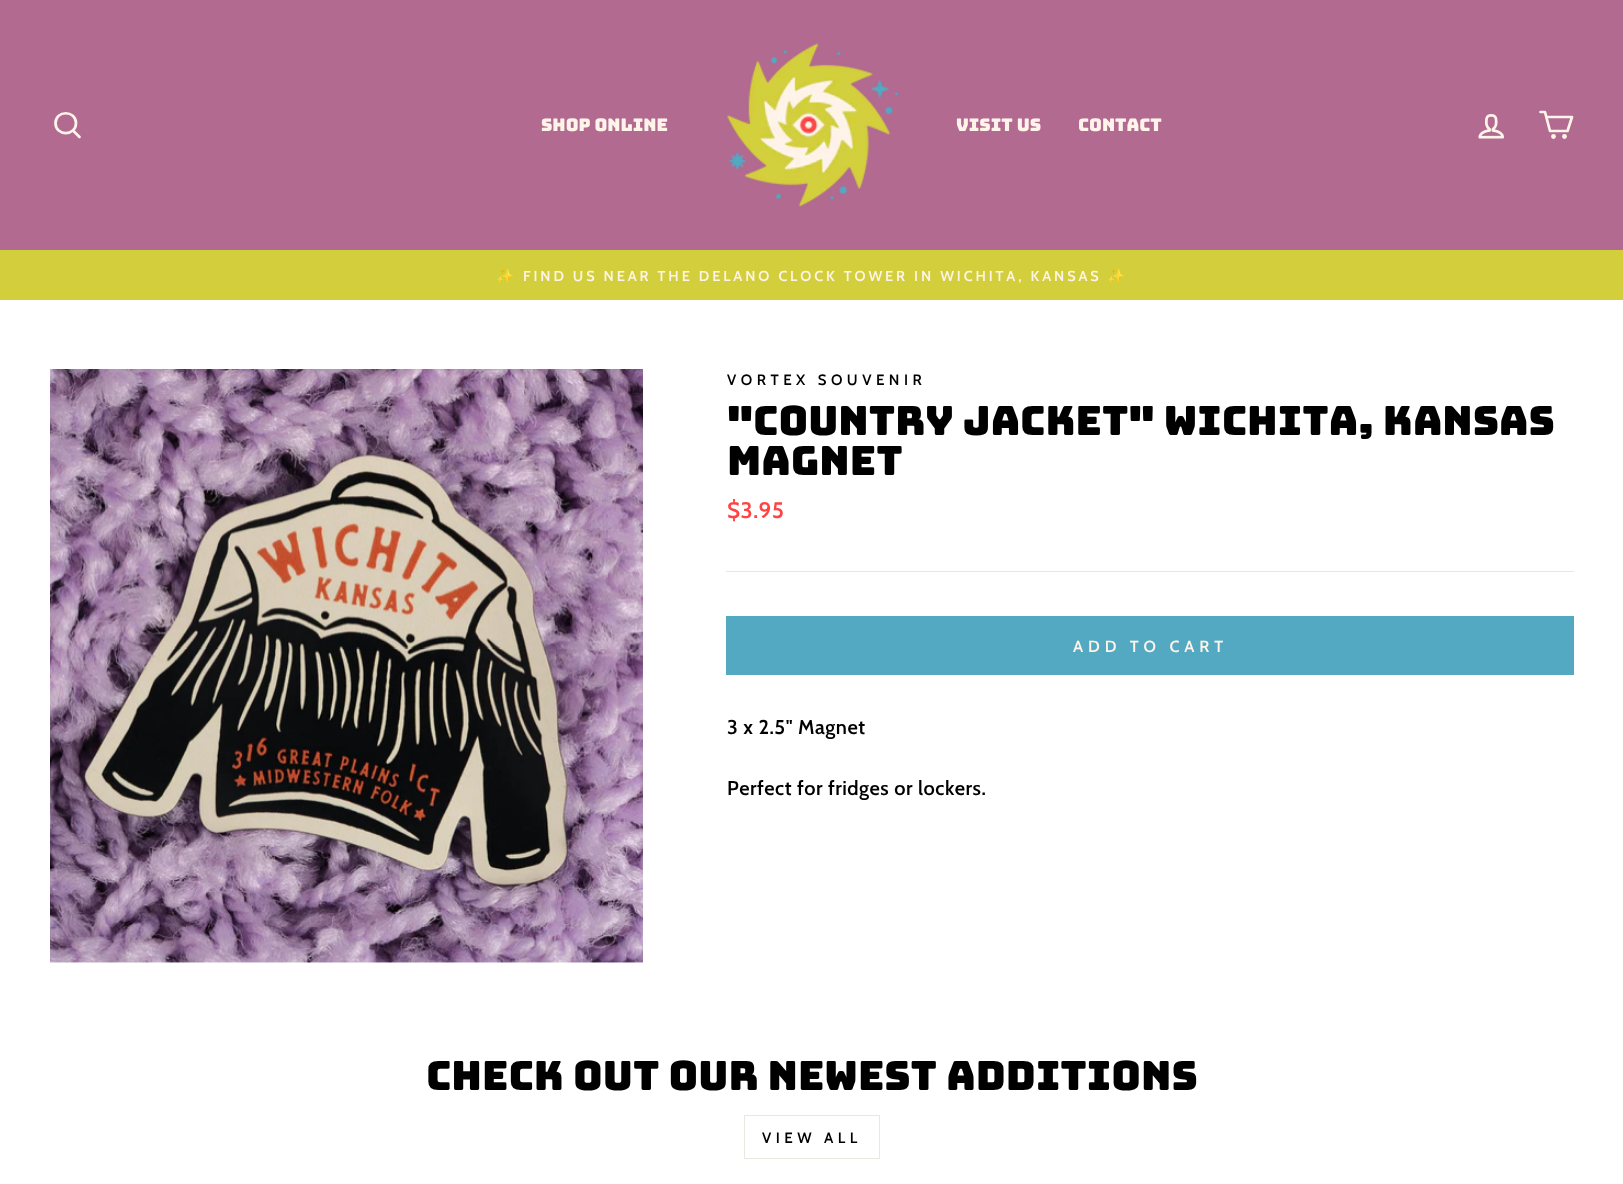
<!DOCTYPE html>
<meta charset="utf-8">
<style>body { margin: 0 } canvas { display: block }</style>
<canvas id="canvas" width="1623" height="1184"></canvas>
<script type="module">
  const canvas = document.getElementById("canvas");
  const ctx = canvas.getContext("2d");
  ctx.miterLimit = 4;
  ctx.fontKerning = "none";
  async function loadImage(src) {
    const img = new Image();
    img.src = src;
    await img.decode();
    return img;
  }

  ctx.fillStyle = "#ffffff";
  ctx.fillRect(0, 0, 1623, 1184);
  ctx.fillStyle = "#b26a90";
  ctx.fillRect(0, 0, 1623, 250);
  ctx.beginPath();
  ctx.moveTo(76, 123);
  ctx.bezierCurveTo(76, 136.5, 55.5, 136.5, 55.5, 123);
  ctx.bezierCurveTo(55.5, 110, 76, 110, 76, 123);
  ctx.closePath();
  ctx.moveTo(79.5, 137);
  ctx.lineTo(73, 130.5);
  ctx.strokeStyle = "#fff4e9";
  ctx.lineWidth = 2.7;
  ctx.lineCap = "round";
  ctx.lineJoin = "round";
  ctx.stroke();
  ctx.font = "17.5px Bungee";
  ctx.fillStyle = "#fff4e9";
  ctx.fillText("SHOP ONLINE", 541, 131);
  ctx.drawImage(await loadImage("img1.png"), 727, 43, 172, 164);
  ctx.fillText("VISIT US", 956, 131);
  ctx.fillText("CONTACT", 1078, 131);
  ctx.drawImage(await loadImage("img2.png"), 1478, 114, 27, 25);
  ctx.beginPath();
  ctx.moveTo(1546.5, 117);
  ctx.lineTo(1572, 117);
  ctx.lineTo(1567.5, 131);
  ctx.lineTo(1550, 131);
  ctx.lineTo(1545, 112);
  ctx.lineTo(1540.5, 112);
  ctx.stroke();
  ctx.beginPath();
  ctx.arc(1553.5, 136.5, 1.1, 0, Math.PI * 2);
  ctx.stroke();
  ctx.beginPath();
  ctx.arc(1564.5, 136.5, 1.1, 0, Math.PI * 2);
  ctx.stroke();
  ctx.fillStyle = "#d3cf3c";
  ctx.fillRect(0, 250, 1623, 50);
  ctx.letterSpacing = "2.9px";
  ctx.font = "bold 14.45px Noto Color Emoji";
  ctx.fillStyle = "#fff4e9";
  ctx.fillText("✨", 496, 281);
  ctx.font = "600 14.45px Cabin";
  ctx.fillText("FIND US NEAR THE DELANO CLOCK TOWER IN WICHITA, KANSAS", 523, 281);
  ctx.font = "bold 14.45px Noto Color Emoji";
  ctx.fillText("✨", 1107, 281);
  ctx.drawImage(await loadImage("img3.png"), 50, 369, 593, 594);
  ctx.letterSpacing = "4.5px";
  ctx.font = "600 15px Cabin";
  ctx.fillStyle = "#000000";
  ctx.fillText("VORTEX SOUVENIR", 727, 385);
  ctx.letterSpacing = "0px";
  ctx.font = "40.4px Bungee";
  ctx.fillText("\"COUNTRY JACKET\" WICHITA, KANSAS", 727, 435);
  ctx.fillText("MAGNET", 727, 475);
  ctx.letterSpacing = "0.5px";
  ctx.font = "600 22.5px Cabin";
  ctx.fillStyle = "#ff4343";
  ctx.fillText("$3.95", 727, 518);
  ctx.fillStyle = "#e8e8e1";
  ctx.fillRect(726, 571, 848, 1);
  ctx.fillStyle = "#53a9c2";
  ctx.fillRect(726, 616, 848, 59);
  ctx.letterSpacing = "4.9px";
  ctx.font = "600 16.25px Cabin";
  ctx.fillStyle = "#fff4e9";
  ctx.fillText("ADD TO CART", 1073, 652);
  ctx.letterSpacing = "0.5px";
  ctx.font = "600 20px Cabin";
  ctx.fillStyle = "#000000";
  ctx.fillText("3 x 2.5\" Magnet", 727, 734);
  ctx.fillText("Perfect for fridges or lockers.", 727, 795);
  ctx.letterSpacing = "0px";
  ctx.font = "40.4px Bungee";
  ctx.fillText("CHECK OUT OUR NEWEST ADDITIONS", 426, 1090);
  ctx.strokeStyle = "#e8e8e1";
  ctx.lineWidth = 1;
  ctx.lineJoin = "miter";
  ctx.strokeRect(744.5, 1115.5, 135, 43);
  ctx.letterSpacing = "4.5px";
  ctx.font = "600 15px Cabin";
  ctx.fillText("VIEW ALL", 762, 1143);
</script>
